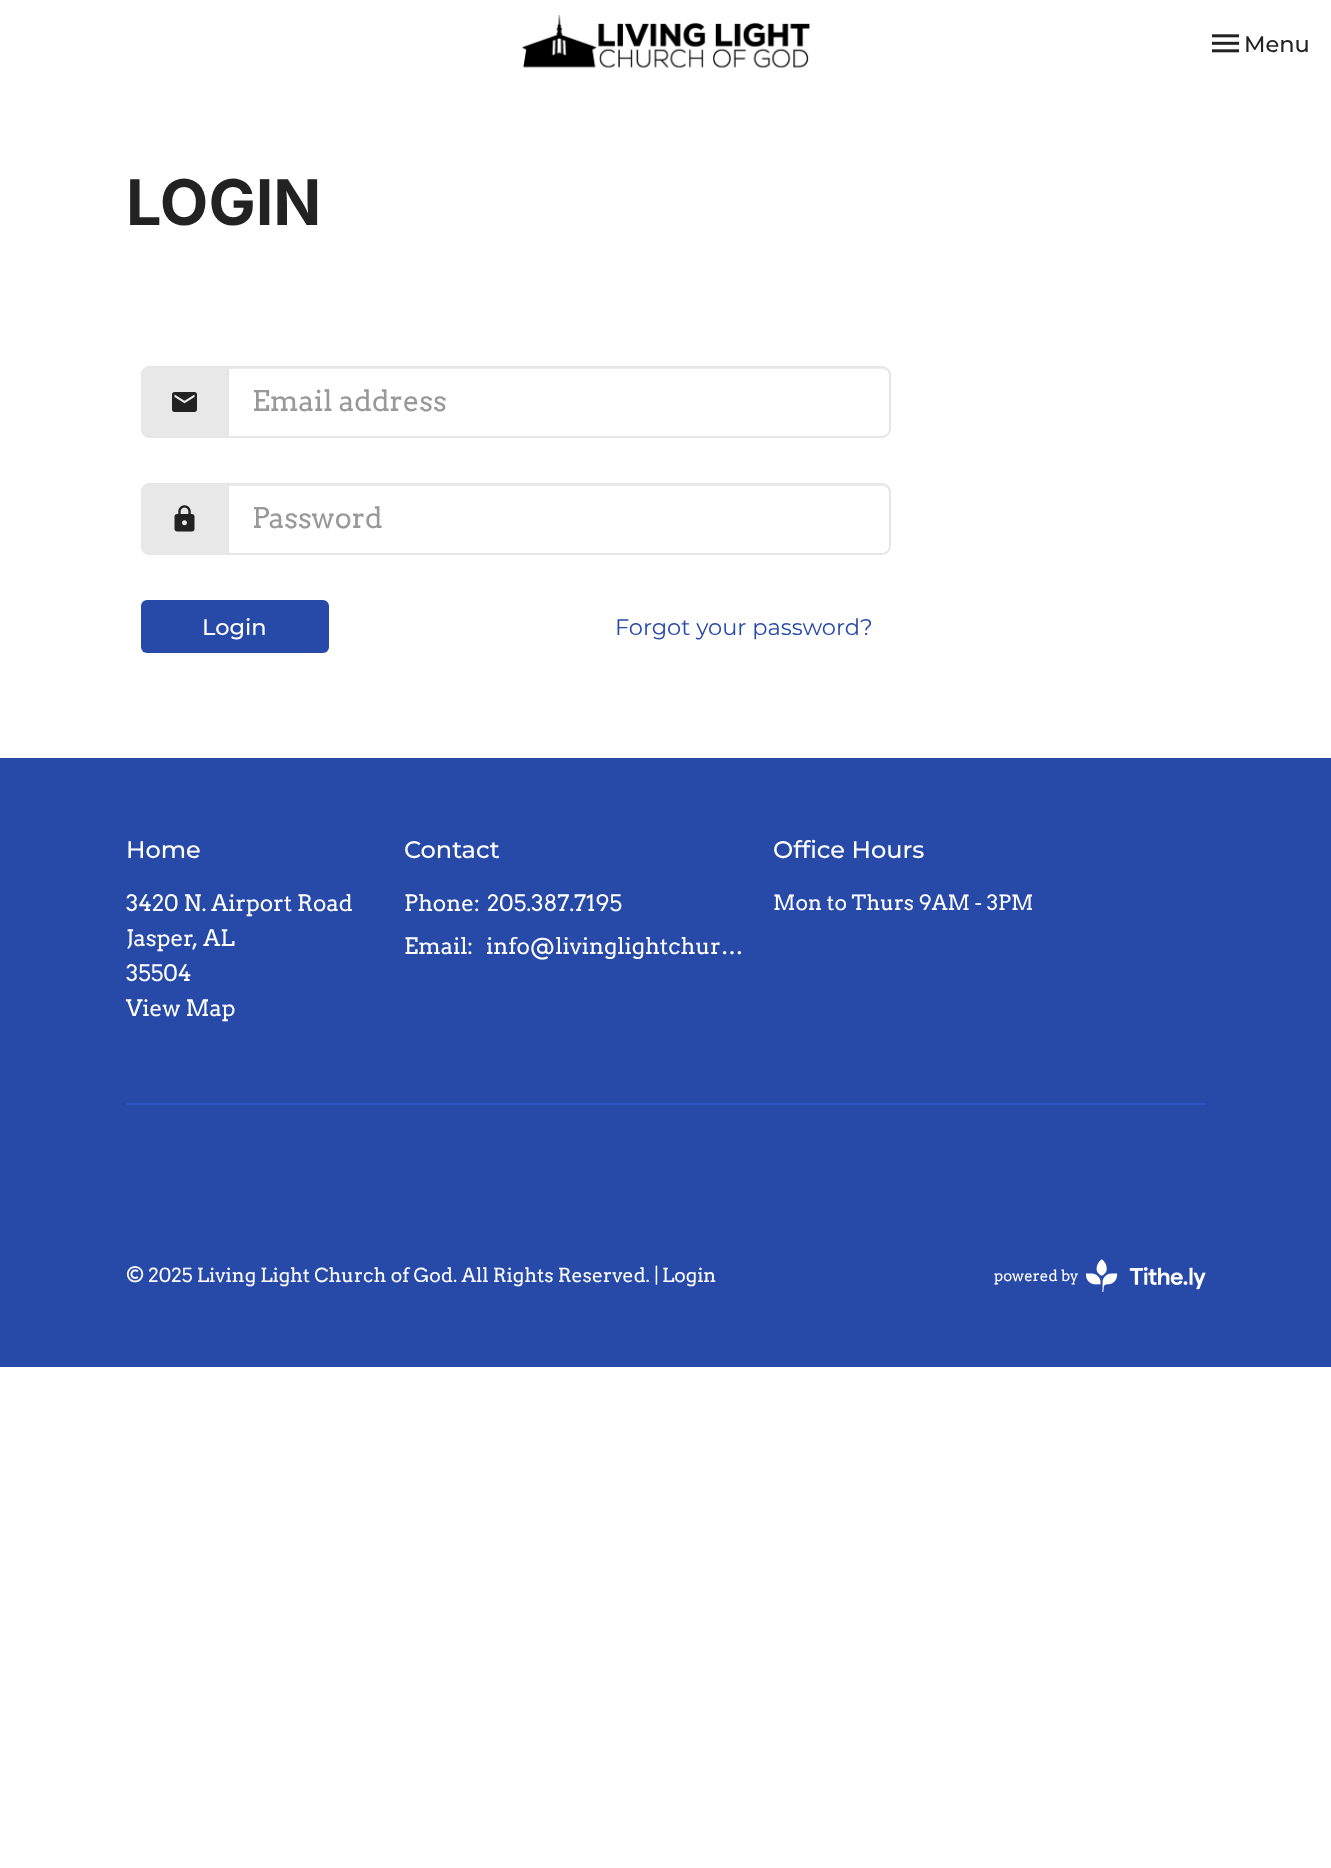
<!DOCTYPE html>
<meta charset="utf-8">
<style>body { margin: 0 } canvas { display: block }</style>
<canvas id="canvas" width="1331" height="1868"></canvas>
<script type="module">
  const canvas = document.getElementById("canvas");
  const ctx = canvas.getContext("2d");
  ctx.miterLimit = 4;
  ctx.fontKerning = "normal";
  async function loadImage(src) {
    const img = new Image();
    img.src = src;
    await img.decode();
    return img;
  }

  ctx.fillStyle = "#ffffff";
  ctx.fillRect(0, 0, 1331, 1868);
  ctx.drawImage(await loadImage("img1.png"), 522, 15, 288, 53);
  ctx.drawImage(await loadImage("img2.png"), 1212, 34, 27, 19);
  ctx.font = "500 22.5px Montserrat";
  ctx.fillStyle = "#222222";
  ctx.fillText("Menu", 1244, 52);
  ctx.font = "bold 63px Inter";
  ctx.fillText("LOGIN", 126, 225);
  ctx.fillStyle = "#e8e8e8";
  ctx.beginPath();
  ctx.roundRect(141, 366, 86, 72, [9, 0, 0, 9]);
  ctx.fill();
  ctx.fillStyle = "#e6e6e6";
  ctx.beginPath();
  ctx.moveTo(150, 366);
  ctx.lineTo(226, 366);
  ctx.lineTo(226, 438);
  ctx.lineTo(150, 438);
  ctx.bezierCurveTo(145, 438, 141, 434, 141, 429);
  ctx.lineTo(141, 375);
  ctx.bezierCurveTo(141, 370, 145, 366, 150, 366);
  ctx.closePath();
  ctx.moveTo(150, 368);
  ctx.lineTo(226, 368);
  ctx.lineTo(226, 436);
  ctx.lineTo(150, 436);
  ctx.bezierCurveTo(146, 436, 142, 433, 142, 429);
  ctx.lineTo(142, 375);
  ctx.bezierCurveTo(142, 371, 146, 368, 150, 368);
  ctx.closePath();
  ctx.fill("evenodd");
  ctx.drawImage(await loadImage("img3.png"), 172, 392, 25, 20);
  ctx.fillStyle = "#ececec";
  ctx.beginPath();
  ctx.moveTo(228, 369);
  ctx.lineTo(882, 369);
  ctx.bezierCurveTo(886, 369, 890, 372, 890, 376);
  ctx.bezierCurveTo(890, 372, 886, 368, 882, 368);
  ctx.lineTo(228, 368);
  ctx.closePath();
  ctx.fill();
  ctx.beginPath();
  ctx.roundRect(228, 367, 662, 70, [0, 8, 8, 0]);
  ctx.strokeStyle = "#e6e6e6";
  ctx.lineWidth = 2;
  ctx.stroke();
  ctx.font = "28.5px Arvo";
  ctx.fillStyle = "#999999";
  ctx.fillText("Email address", 252, 411);
  ctx.fillStyle = "#e8e8e8";
  ctx.beginPath();
  ctx.roundRect(141, 483, 86, 72, [9, 0, 0, 9]);
  ctx.fill();
  ctx.fillStyle = "#e6e6e6";
  ctx.beginPath();
  ctx.moveTo(150, 483);
  ctx.lineTo(226, 483);
  ctx.lineTo(226, 555);
  ctx.lineTo(150, 555);
  ctx.bezierCurveTo(145, 555, 141, 551, 141, 546);
  ctx.lineTo(141, 492);
  ctx.bezierCurveTo(141, 487, 145, 483, 150, 483);
  ctx.closePath();
  ctx.moveTo(150, 484);
  ctx.lineTo(226, 484);
  ctx.lineTo(226, 554);
  ctx.lineTo(150, 554);
  ctx.bezierCurveTo(146, 554, 142, 550, 142, 546);
  ctx.lineTo(142, 492);
  ctx.bezierCurveTo(142, 488, 146, 484, 150, 484);
  ctx.closePath();
  ctx.fill("evenodd");
  ctx.drawImage(await loadImage("img4.png"), 174, 505, 21, 27);
  ctx.fillStyle = "#ececec";
  ctx.beginPath();
  ctx.moveTo(228, 486);
  ctx.lineTo(882, 486);
  ctx.bezierCurveTo(886, 486, 890, 489, 890, 494);
  ctx.lineTo(890, 493);
  ctx.bezierCurveTo(890, 489, 886, 485, 882, 485);
  ctx.lineTo(228, 485);
  ctx.closePath();
  ctx.fill();
  ctx.beginPath();
  ctx.roundRect(228, 484, 662, 70, [0, 8, 8, 0]);
  ctx.stroke();
  ctx.fillStyle = "#999999";
  ctx.fillText("Password", 252, 528);
  ctx.fillStyle = "#2749a8";
  ctx.beginPath();
  ctx.roundRect(141, 600, 188, 53, 6);
  ctx.fill();
  ctx.font = "500 22.5px Montserrat";
  ctx.fillStyle = "#ffffff";
  ctx.fillText("Login", 202, 635);
  ctx.font = "22.5px Montserrat";
  ctx.fillStyle = "#2749a8";
  ctx.fillText("Forgot your password?", 615, 635);
  ctx.fillRect(0, 758, 1331, 609);
  ctx.font = "500 24px Montserrat";
  ctx.fillStyle = "#ffffff";
  ctx.fillText("Home", 126, 858);
  ctx.font = "22.5px Arvo";
  ctx.fillText("3420 N. Airport Road", 126, 911);
  ctx.fillText("Jasper, AL", 126, 946);
  ctx.fillText("35504", 126, 981);
  ctx.fillText("View Map", 126, 1016);
  ctx.font = "500 24px Montserrat";
  ctx.fillText("Contact", 404, 858);
  ctx.font = "22.5px Arvo";
  ctx.fillText("Phone:", 404, 911);
  ctx.fillText("205.387.7195", 487, 911);
  ctx.fillText("Email:", 404, 954);
  ctx.fillText("info@livinglightchur…", 486, 954);
  ctx.font = "500 24px Montserrat";
  ctx.fillText("Office Hours", 773, 858);
  ctx.font = "21px Arvo";
  ctx.fillText("Mon to Thurs 9AM - 3PM", 773, 910);
  ctx.fillStyle = "#2d54c1";
  ctx.fillRect(126, 1103, 1080, 2);
  ctx.font = "19.35px Arvo";
  ctx.fillStyle = "#ffffff";
  ctx.fillText("© 2025 Living Light Church of God. All Rights Reserved. |", 126, 1282);
  ctx.fillText("Login", 662, 1282);
  ctx.font = "15px Arvo";
  ctx.fillText("powered by", 994, 1281);
  ctx.drawImage(await loadImage("img5.png"), 1086, 1259, 120, 33);
</script>
